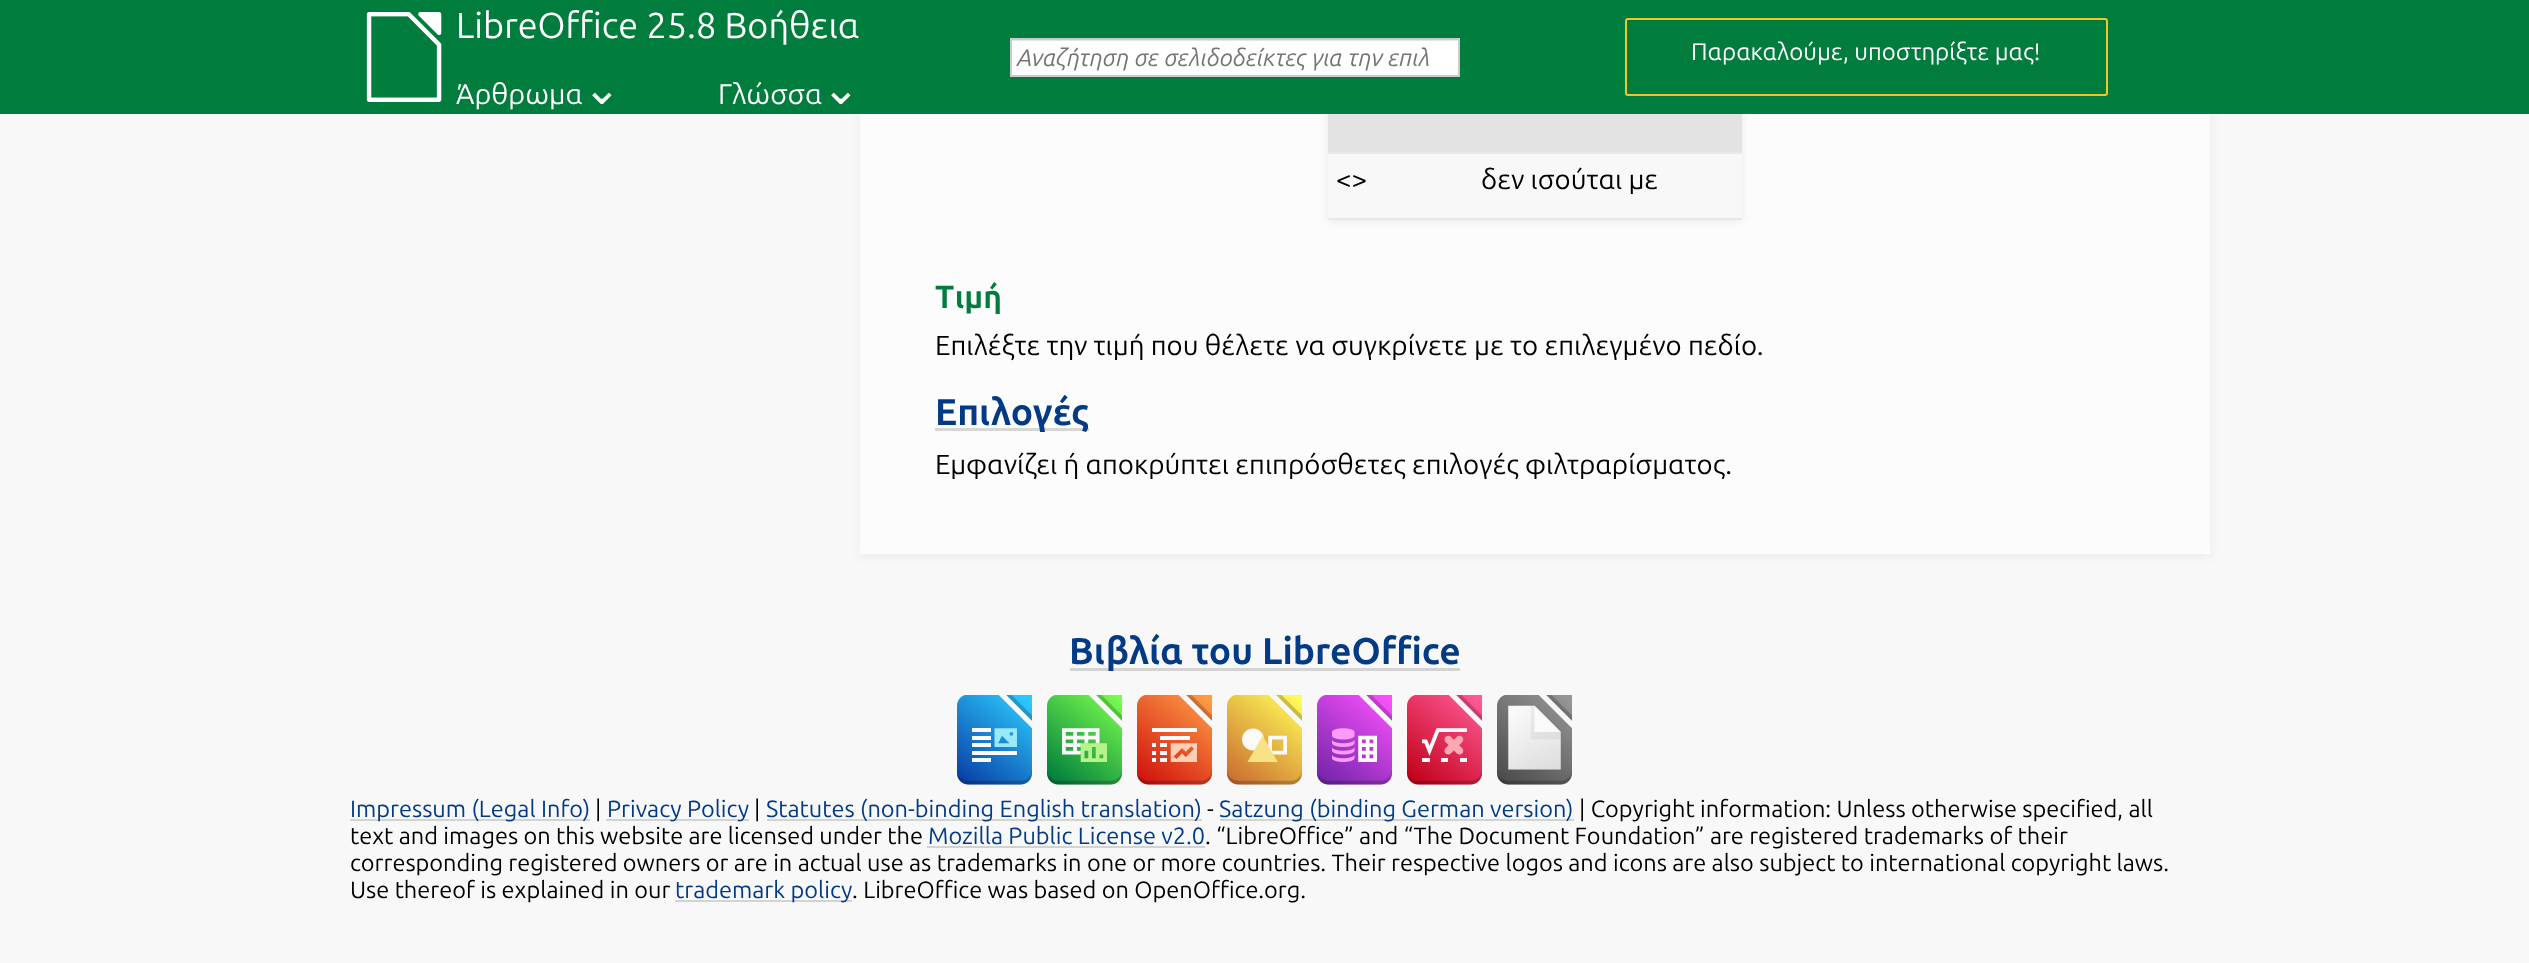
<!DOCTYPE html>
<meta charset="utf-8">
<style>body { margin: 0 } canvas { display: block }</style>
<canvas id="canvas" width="2529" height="963"></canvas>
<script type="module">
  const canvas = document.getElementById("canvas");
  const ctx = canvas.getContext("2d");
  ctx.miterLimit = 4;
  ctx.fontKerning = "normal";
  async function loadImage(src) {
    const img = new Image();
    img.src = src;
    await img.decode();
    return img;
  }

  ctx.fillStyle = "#f7f8f7";
  ctx.fillRect(0, 0, 2529, 963);
  ctx.fillStyle = "rgba(0, 0, 0, 0.05)";
  ctx.filter = "blur(6px)";
  ctx.beginPath();
  ctx.rect(860, -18, 1350, 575);
  ctx.fill();
  ctx.filter = "none";
  ctx.fillStyle = "#fcfcfc";
  ctx.fillRect(860, 114, 1350, 440);
  ctx.fillStyle = "rgba(0, 0, 0, 0.08)";
  ctx.filter = "blur(4px)";
  ctx.beginPath();
  ctx.rect(1328, -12, 414, 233);
  ctx.fill();
  ctx.filter = "none";
  ctx.fillStyle = "#007c3c";
  ctx.fillRect(0, 0, 2529, 114);
  ctx.drawImage(await loadImage("img1.png"), 366, 12, 76, 90);
  ctx.font = "36px Ubuntu";
  ctx.fillStyle = "#ffffff";
  ctx.fillText("LibreOffice 25.8 Βοήθεια", 456, 38);
  ctx.font = "28.5px Ubuntu";
  ctx.fillText("Άρθρωμα", 456, 104);
  ctx.font = "45px DejaVu Sans";
  ctx.fillText("⌄", 583, 104);
  ctx.font = "28.5px Ubuntu";
  ctx.fillText("Γλώσσα", 718, 104);
  ctx.font = "45px DejaVu Sans";
  ctx.fillText("⌄", 822, 104);
  ctx.fillRect(1012, 41, 446, 34);
  ctx.fillStyle = "#e6e6e6";
  ctx.fillRect(1011, 40, 447, 1);
  ctx.strokeStyle = "#cccccc";
  ctx.lineWidth = 2;
  ctx.strokeRect(1011, 39, 448, 37);
  ctx.font = "italic 24px Ubuntu";
  ctx.fillStyle = "#757575";
  ctx.fillText("Αναζήτηση σε σελιδοδείκτες για την επιλ", 1017, 66);
  ctx.beginPath();
  ctx.roundRect(1626, 19, 481, 76, 2);
  ctx.strokeStyle = "#f1c62a";
  ctx.stroke();
  ctx.font = "24px Ubuntu";
  ctx.fillStyle = "#ffffff";
  ctx.fillText("Παρακαλούμε, υποστηρίξτε μας!", 1691, 60);
  ctx.fillStyle = "#f7f8f7";
  ctx.fillRect(1328, 154, 414, 64);
  ctx.fillStyle = "#e8e8e8";
  ctx.fillRect(1328, 218, 414, 2);
  ctx.fillStyle = "#e3e3e3";
  ctx.fillRect(1328, 114, 414, 38);
  ctx.fillStyle = "#e8e8e8";
  ctx.fillRect(1328, 152, 4, 2);
  ctx.fillRect(1738, 152, 4, 2);
  ctx.font = "27.6px Ubuntu";
  ctx.fillStyle = "#000000";
  ctx.fillText("<>", 1336, 189);
  ctx.fillText("δεν ισούται με", 1481, 189);
  ctx.font = "bold 32px Ubuntu";
  ctx.fillStyle = "#007c3c";
  ctx.fillText("Τιμή", 935, 308);
  ctx.font = "27.6px Ubuntu";
  ctx.fillStyle = "#000000";
  ctx.fillText("Επιλέξτε την τιμή που θέλετε να συγκρίνετε με το επιλεγμένο πεδίο.", 935, 355);
  ctx.fillStyle = "#d6d6d6";
  ctx.fillRect(935, 428, 154, 3);
  ctx.font = "bold 37.25px Ubuntu";
  ctx.fillStyle = "#023a86";
  ctx.fillText("Επιλογές", 935, 425);
  ctx.font = "27.6px Ubuntu";
  ctx.fillStyle = "#000000";
  ctx.fillText("Εμφανίζει ή αποκρύπτει επιπρόσθετες επιλογές φιλτραρίσματος.", 935, 474);
  ctx.fillStyle = "#d2d3d2";
  ctx.fillRect(1070, 668, 390, 3);
  ctx.font = "bold 37.25px Ubuntu";
  ctx.fillStyle = "#023a86";
  ctx.fillText("Βιβλία του LibreOffice", 1069, 664);
  ctx.drawImage(await loadImage("img2.png"), 957, 695, 75, 90);
  ctx.drawImage(await loadImage("img3.png"), 1047, 695, 75, 90);
  ctx.drawImage(await loadImage("img4.png"), 1137, 695, 75, 90);
  ctx.drawImage(await loadImage("img5.png"), 1227, 695, 75, 90);
  ctx.drawImage(await loadImage("img6.png"), 1317, 695, 75, 90);
  ctx.drawImage(await loadImage("img7.png"), 1407, 695, 75, 90);
  ctx.drawImage(await loadImage("img8.png"), 1497, 695, 75, 90);
  ctx.fillStyle = "#d2d3d2";
  ctx.fillRect(350, 819, 240, 2);
  ctx.font = "23.52px Ubuntu";
  ctx.fillStyle = "#023a86";
  ctx.fillText("Impressum (Legal Info)", 350, 817);
  ctx.fillStyle = "#000000";
  ctx.fillText("|", 595, 817);
  ctx.fillStyle = "#d2d3d2";
  ctx.fillRect(606, 819, 143, 2);
  ctx.fillStyle = "#023a86";
  ctx.fillText("Privacy Policy", 607, 817);
  ctx.fillStyle = "#000000";
  ctx.fillText("|", 754, 817);
  ctx.fillStyle = "#d2d3d2";
  ctx.fillRect(767, 819, 435, 2);
  ctx.fillStyle = "#023a86";
  ctx.fillText("Statutes (non-binding English translation)", 766, 817);
  ctx.fillStyle = "#000000";
  ctx.fillText("-", 1207, 817);
  ctx.fillStyle = "#d2d3d2";
  ctx.fillRect(1220, 819, 354, 2);
  ctx.fillStyle = "#023a86";
  ctx.fillText("Satzung (binding German version)", 1219, 817);
  ctx.fillStyle = "#000000";
  ctx.fillText("| Copyright information: Unless otherwise specified, all", 1579, 817);
  ctx.fillText("text and images on this website are licensed under the", 350, 844);
  ctx.fillStyle = "#023a86";
  ctx.fillText("Mozilla Public License v2.0", 928, 844);
  ctx.fillStyle = "#d2d3d2";
  ctx.fillRect(927, 846, 278, 2);
  ctx.fillStyle = "#000000";
  ctx.fillText(". “LibreOffice” and “The Document Foundation” are registered trademarks of their", 1205, 844);
  ctx.fillText("corresponding registered owners or are in actual use as trademarks in one or more countries. Their respective logos and icons are also subject to international copyright laws.", 350, 871);
  ctx.fillText("Use thereof is explained in our", 350, 898);
  ctx.fillStyle = "#d2d3d2";
  ctx.fillRect(675, 900, 177, 2);
  ctx.fillStyle = "#023a86";
  ctx.fillText("trademark policy", 675, 898);
  ctx.fillStyle = "#000000";
  ctx.fillText(". LibreOffice was based on OpenOffice.org.", 852, 898);
</script>
